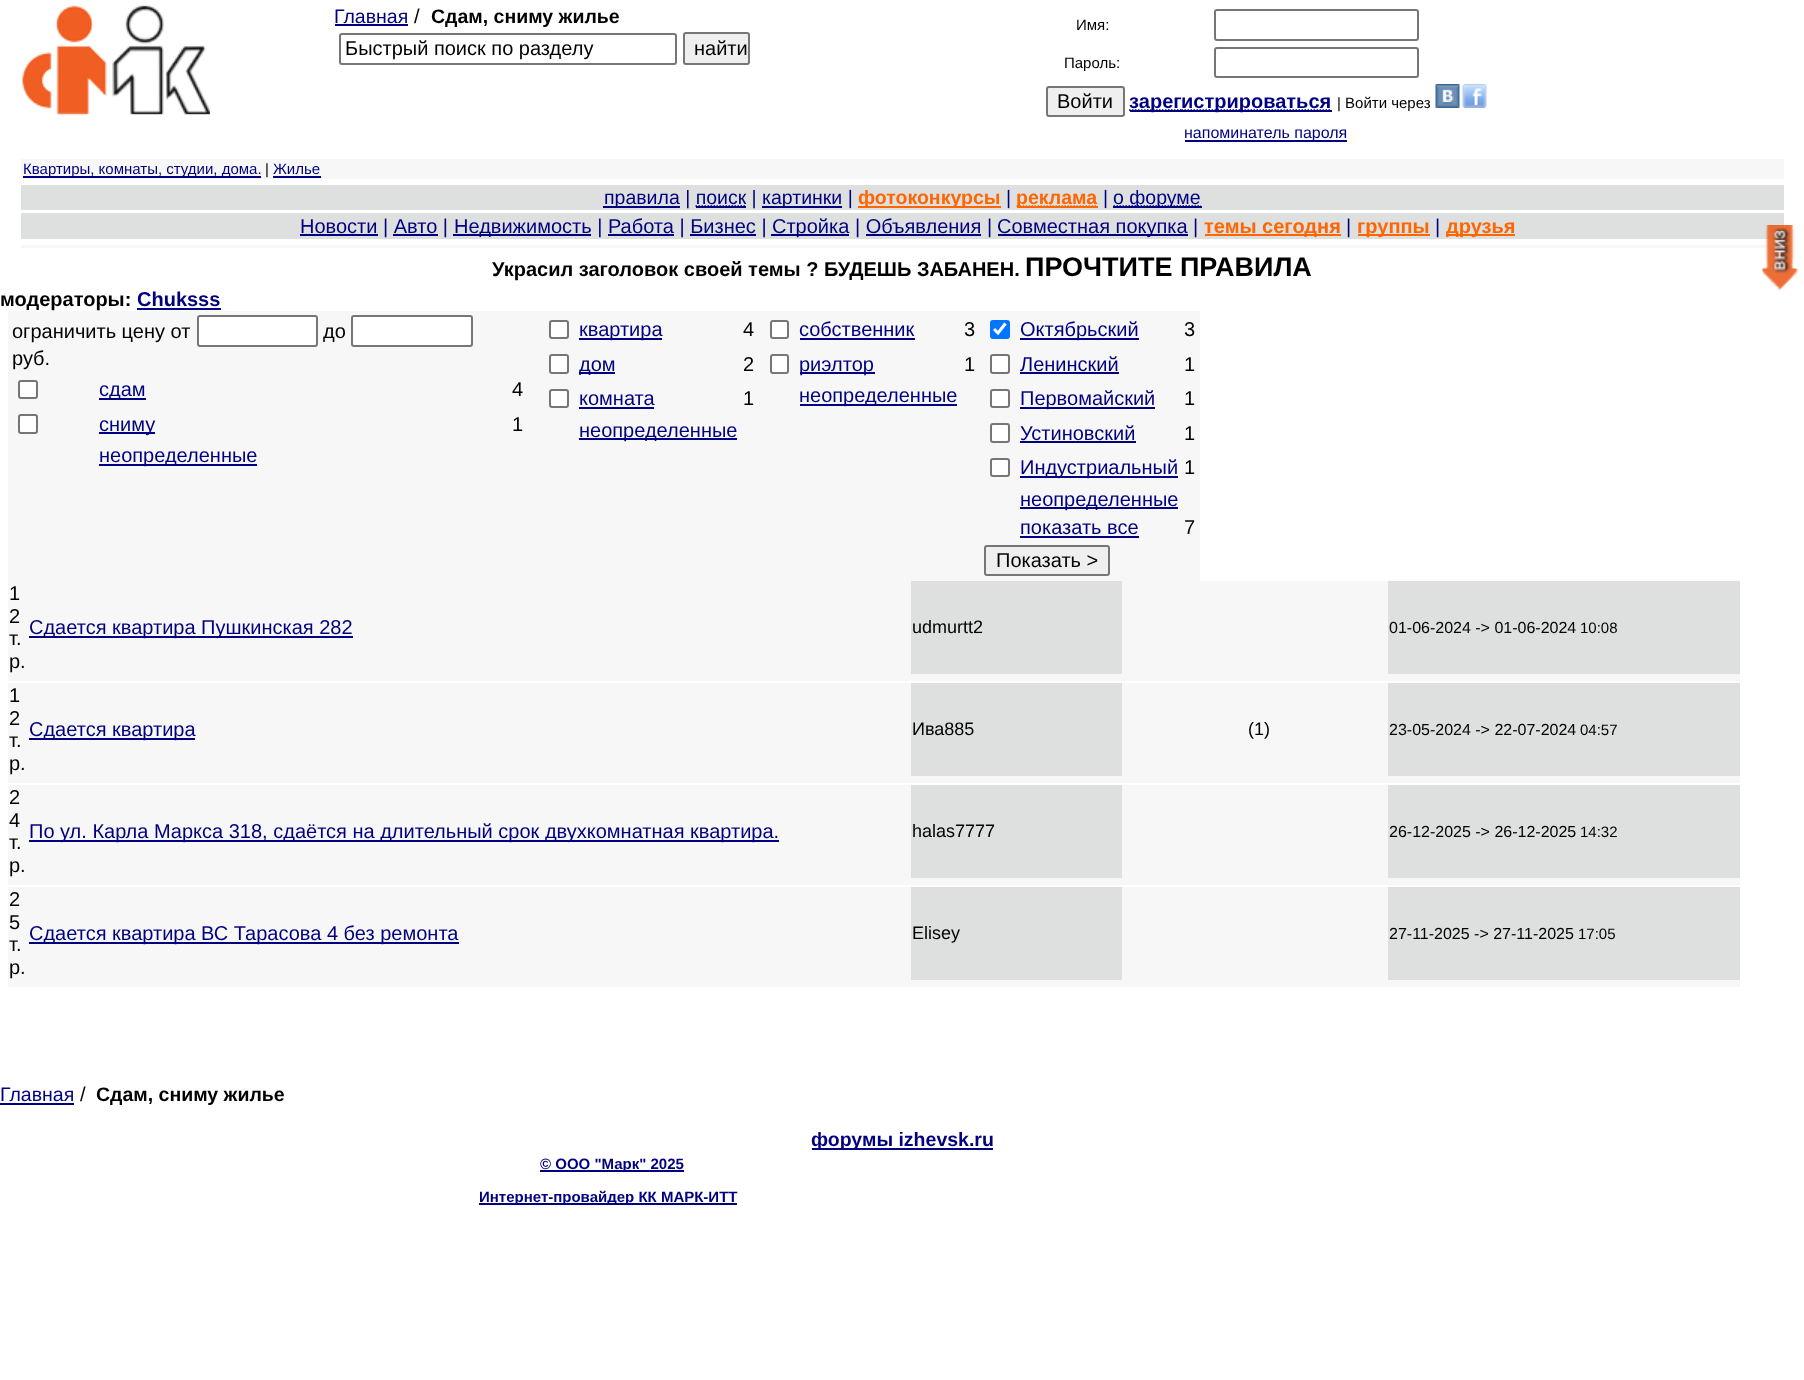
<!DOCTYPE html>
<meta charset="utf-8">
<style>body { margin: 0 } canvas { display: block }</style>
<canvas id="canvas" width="1804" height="1380"></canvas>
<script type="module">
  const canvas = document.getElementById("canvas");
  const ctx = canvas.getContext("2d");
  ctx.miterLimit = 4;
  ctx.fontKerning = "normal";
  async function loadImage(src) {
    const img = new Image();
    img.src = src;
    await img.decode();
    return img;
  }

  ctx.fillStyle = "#ffffff";
  ctx.fillRect(0, 0, 1804, 1380);
  ctx.drawImage(await loadImage("img1.png"), 22, 5, 188, 110);
  ctx.font = "19.5px Liberation Sans";
  ctx.fillStyle = "#000080";
  ctx.fillText("Главная", 334, 23);
  ctx.fillRect(335, 24, 73, 2);
  ctx.font = "20px Liberation Sans";
  ctx.fillStyle = "#000000";
  ctx.fillText("/", 414, 23);
  ctx.font = "bold 19.5px Liberation Sans";
  ctx.fillText("Сдам, сниму жилье", 431, 23);
  ctx.beginPath();
  ctx.roundRect(340, 34, 336, 30, 2);
  ctx.strokeStyle = "#767676";
  ctx.lineWidth = 2;
  ctx.stroke();
  ctx.font = "20px Liberation Sans";
  ctx.fillText("Быстрый поиск по разделу", 345, 55);
  ctx.fillStyle = "#efefef";
  ctx.beginPath();
  ctx.roundRect(684, 33, 65, 31, 2);
  ctx.fill();
  ctx.stroke();
  ctx.fillStyle = "#000000";
  ctx.fillText("найти", 694, 55);
  ctx.font = "15px Liberation Sans";
  ctx.fillText("Имя:", 1076, 30);
  ctx.beginPath();
  ctx.roundRect(1215, 10, 203, 30, 2);
  ctx.stroke();
  ctx.fillText("Пароль:", 1064, 68);
  ctx.beginPath();
  ctx.roundRect(1215, 48, 203, 29, 2);
  ctx.stroke();
  ctx.fillStyle = "#efefef";
  ctx.beginPath();
  ctx.roundRect(1047, 87, 77, 29, 2);
  ctx.fill();
  ctx.stroke();
  ctx.font = "20px Liberation Sans";
  ctx.fillStyle = "#000000";
  ctx.fillText("Войти", 1057, 108);
  ctx.font = "bold 20px Liberation Sans";
  ctx.fillStyle = "#000080";
  ctx.fillText("за", 1129, 108);
  ctx.beginPath();
  ctx.moveTo(1129, 110);
  ctx.lineTo(1150, 110);
  ctx.strokeStyle = "#000080";
  ctx.lineWidth = 1.5;
  ctx.setLineDash([1.5, 1.5]);
  ctx.stroke();
  ctx.fillRect(1130, 110, 21, 2);
  ctx.beginPath();
  ctx.moveTo(1150, 110);
  ctx.lineTo(1181.5, 110);
  ctx.stroke();
  ctx.fillRect(1151, 110, 31, 2);
  ctx.fillText("рег", 1150, 108);
  ctx.beginPath();
  ctx.moveTo(1181.5, 110);
  ctx.lineTo(1331.5, 110);
  ctx.stroke();
  ctx.fillRect(1182, 110, 150, 2);
  ctx.fillText("истрироваться", 1181, 108);
  ctx.font = "15px Liberation Sans";
  ctx.fillStyle = "#000000";
  ctx.fillText("| Войти через", 1337, 108);
  ctx.drawImage(await loadImage("img2.png"), 1435, 84, 25, 24);
  ctx.drawImage(await loadImage("img3.png"), 1462, 84, 25, 24);
  ctx.fillStyle = "#000080";
  ctx.fillRect(1185, 140, 162, 2);
  ctx.font = "16px Liberation Sans";
  ctx.fillText("напоминатель пароля", 1184, 138);
  ctx.fillStyle = "#f7f7f7";
  ctx.fillRect(21, 159, 1763, 20);
  ctx.fillStyle = "#000080";
  ctx.fillRect(23, 176, 238, 2);
  ctx.font = "15px Liberation Sans";
  ctx.fillText("Квартиры, комнаты, студии, дома.", 23, 174);
  ctx.fillStyle = "#000000";
  ctx.fillText("|", 265, 174);
  ctx.fillStyle = "#000080";
  ctx.fillText("Жилье", 273, 174);
  ctx.fillRect(273, 176, 48, 2);
  ctx.fillStyle = "#dedfdf";
  ctx.fillRect(21, 185, 1763, 25);
  ctx.fillStyle = "#000080";
  ctx.fillRect(603, 206, 77, 2);
  ctx.font = "19.5px Liberation Sans";
  ctx.fillText("правила | поиск |", 604, 204);
  ctx.beginPath();
  ctx.moveTo(695.5, 206);
  ctx.lineTo(746, 206);
  ctx.stroke();
  ctx.fillRect(696, 206, 50, 2);
  ctx.fillRect(762, 206, 80, 2);
  ctx.fillText("картинки |", 762, 204);
  ctx.fillStyle = "#ff6600";
  ctx.fillRect(858, 206, 143, 2);
  ctx.font = "bold 19.5px Liberation Sans";
  ctx.fillText("фотоконкурсы", 858, 204);
  ctx.font = "19.5px Liberation Sans";
  ctx.fillStyle = "#000080";
  ctx.fillText("|", 1006, 204);
  ctx.beginPath();
  ctx.moveTo(1016.5, 206);
  ctx.lineTo(1097.5, 206);
  ctx.strokeStyle = "#ff6600";
  ctx.stroke();
  ctx.fillStyle = "#ff6600";
  ctx.fillRect(1017, 206, 81, 2);
  ctx.font = "bold 19.5px Liberation Sans";
  ctx.fillText("реклама", 1016, 204);
  ctx.font = "19.5px Liberation Sans";
  ctx.fillStyle = "#000080";
  ctx.fillText("|", 1103, 204);
  ctx.beginPath();
  ctx.moveTo(1113.5, 206);
  ctx.lineTo(1201, 206);
  ctx.strokeStyle = "#000080";
  ctx.stroke();
  ctx.fillRect(1113, 206, 89, 2);
  ctx.fillText("о форуме", 1113, 204);
  ctx.fillStyle = "#dedfdf";
  ctx.fillRect(21, 213, 1763, 26);
  ctx.fillStyle = "#000080";
  ctx.fillRect(300, 234, 78, 2);
  ctx.font = "20px Liberation Sans";
  ctx.fillText("Новости | Авто |", 300, 233);
  ctx.fillRect(393, 234, 45, 2);
  ctx.fillRect(453, 234, 138, 2);
  ctx.fillText("Недвижимость | Работа | Бизнес |", 454, 233);
  ctx.fillRect(608, 234, 66, 2);
  ctx.fillRect(690, 234, 66, 2);
  ctx.fillRect(771, 234, 78, 2);
  ctx.fillText("Стройка | Объявления |", 772, 233);
  ctx.fillRect(866, 234, 115, 2);
  ctx.fillRect(998, 234, 190, 2);
  ctx.fillText("Совместная покупка", 997, 233);
  ctx.fillText("|", 1193, 233);
  ctx.fillStyle = "#ff6600";
  ctx.fillRect(1205, 234, 136, 2);
  ctx.font = "bold 20px Liberation Sans";
  ctx.fillText("темы сегодня", 1204, 233);
  ctx.font = "20px Liberation Sans";
  ctx.fillStyle = "#000080";
  ctx.fillText("|", 1346, 233);
  ctx.fillStyle = "#ff6600";
  ctx.fillRect(1358, 234, 72, 2);
  ctx.font = "bold 20px Liberation Sans";
  ctx.fillText("группы", 1357, 233);
  ctx.font = "20px Liberation Sans";
  ctx.fillStyle = "#000080";
  ctx.fillText("|", 1435, 233);
  ctx.fillStyle = "#ff6600";
  ctx.fillRect(1446, 234, 69, 2);
  ctx.font = "bold 20px Liberation Sans";
  ctx.fillText("друзья", 1446, 233);
  ctx.fillStyle = "#f7f7f7";
  ctx.fillRect(21, 245, 1763, 3);
  ctx.fillStyle = "#000000";
  ctx.fillText("Украсил заголовок своей темы ? БУДЕШЬ ЗАБАНЕН.", 492, 276);
  ctx.font = "bold 27px Liberation Sans";
  ctx.fillText("ПРОЧТИТЕ ПРАВИЛА", 1025, 276);
  ctx.font = "bold 20px Liberation Sans";
  ctx.fillText("модераторы:", 0, 306);
  ctx.fillStyle = "#000080";
  ctx.fillRect(137, 308, 84, 2);
  ctx.fillText("Chuksss", 137, 306);
  ctx.fillStyle = "#f7f7f7";
  ctx.fillRect(8, 311, 1192, 270);
  ctx.font = "20px Liberation Sans";
  ctx.fillStyle = "#000000";
  ctx.fillText("ограничить цену от", 12, 338);
  ctx.fillStyle = "#ffffff";
  ctx.beginPath();
  ctx.roundRect(198, 316, 119, 30, 2);
  ctx.fill();
  ctx.strokeStyle = "#767676";
  ctx.lineWidth = 2;
  ctx.setLineDash([]);
  ctx.stroke();
  ctx.fillStyle = "#000000";
  ctx.fillText("до", 323, 338);
  ctx.fillStyle = "#ffffff";
  ctx.beginPath();
  ctx.roundRect(352, 316, 120, 30, 2);
  ctx.fill();
  ctx.stroke();
  ctx.fillStyle = "#000000";
  ctx.fillText("руб.", 12, 365);
  ctx.fillStyle = "#ffffff";
  ctx.beginPath();
  ctx.roundRect(19, 381, 18, 17, 2);
  ctx.fill();
  ctx.stroke();
  ctx.fillStyle = "#000080";
  ctx.fillRect(99, 398, 47, 2);
  ctx.fillText("сдам", 99, 396);
  ctx.fillStyle = "#000000";
  ctx.fillText("4", 512, 396);
  ctx.fillStyle = "#ffffff";
  ctx.beginPath();
  ctx.roundRect(19, 415, 18, 18, 2);
  ctx.fill();
  ctx.stroke();
  ctx.fillStyle = "#000080";
  ctx.fillRect(99, 432, 56, 2);
  ctx.fillText("сниму", 99, 431);
  ctx.fillStyle = "#000000";
  ctx.fillText("1", 512, 431);
  ctx.fillStyle = "#000080";
  ctx.fillRect(99, 464, 158, 2);
  ctx.fillText("неопределенные", 99, 462);
  ctx.fillStyle = "#ffffff";
  ctx.beginPath();
  ctx.roundRect(550, 321, 18, 17, 2);
  ctx.fill();
  ctx.stroke();
  ctx.fillStyle = "#000080";
  ctx.fillRect(579, 338, 83, 2);
  ctx.fillText("квартира", 579, 336);
  ctx.fillStyle = "#000000";
  ctx.fillText("4", 743, 336);
  ctx.fillStyle = "#ffffff";
  ctx.beginPath();
  ctx.roundRect(550, 355, 18, 18, 2);
  ctx.fill();
  ctx.stroke();
  ctx.fillStyle = "#000080";
  ctx.fillRect(579, 372, 36, 2);
  ctx.fillText("дом", 579, 371);
  ctx.fillStyle = "#000000";
  ctx.fillText("2", 743, 371);
  ctx.fillStyle = "#ffffff";
  ctx.beginPath();
  ctx.roundRect(550, 390, 18, 17, 2);
  ctx.fill();
  ctx.stroke();
  ctx.fillStyle = "#000080";
  ctx.fillText("комната", 579, 405);
  ctx.fillRect(579, 407, 75, 2);
  ctx.fillStyle = "#000000";
  ctx.fillText("1", 743, 405);
  ctx.fillStyle = "#000080";
  ctx.fillRect(579, 438, 158, 2);
  ctx.fillText("неопределенные", 579, 437);
  ctx.fillStyle = "#ffffff";
  ctx.beginPath();
  ctx.roundRect(771, 321, 17, 17, 2);
  ctx.fill();
  ctx.stroke();
  ctx.fillStyle = "#000080";
  ctx.fillText("собственник", 799, 336);
  ctx.fillRect(800, 338, 115, 2);
  ctx.fillStyle = "#000000";
  ctx.fillText("3", 964, 336);
  ctx.fillStyle = "#ffffff";
  ctx.beginPath();
  ctx.roundRect(771, 355, 17, 18, 2);
  ctx.fill();
  ctx.stroke();
  ctx.fillStyle = "#000080";
  ctx.fillRect(800, 372, 75, 2);
  ctx.fillText("риэлтор", 799, 371);
  ctx.fillStyle = "#000000";
  ctx.fillText("1", 964, 371);
  ctx.fillStyle = "#000080";
  ctx.fillRect(800, 404, 157, 2);
  ctx.fillText("неопределенные", 799, 402);
  ctx.fillStyle = "#0075ff";
  ctx.beginPath();
  ctx.roundRect(990, 320, 20, 19, 3);
  ctx.fill();
  ctx.beginPath();
  ctx.moveTo(994, 329);
  ctx.lineTo(998, 333);
  ctx.lineTo(1005.5, 323.5);
  ctx.strokeStyle = "#ffffff";
  ctx.lineWidth = 3.1;
  ctx.stroke();
  ctx.fillStyle = "#000080";
  ctx.fillRect(1020, 338, 119, 2);
  ctx.fillText("Октябрьский", 1020, 336);
  ctx.fillStyle = "#000000";
  ctx.fillText("3", 1184, 336);
  ctx.fillStyle = "#ffffff";
  ctx.beginPath();
  ctx.roundRect(991, 355, 18, 18, 2);
  ctx.fill();
  ctx.strokeStyle = "#767676";
  ctx.lineWidth = 2;
  ctx.stroke();
  ctx.fillStyle = "#000080";
  ctx.fillText("Ленинский", 1020, 371);
  ctx.fillRect(1020, 372, 99, 2);
  ctx.fillStyle = "#000000";
  ctx.fillText("1", 1184, 371);
  ctx.fillStyle = "#ffffff";
  ctx.beginPath();
  ctx.roundRect(991, 390, 18, 17, 2);
  ctx.fill();
  ctx.stroke();
  ctx.fillStyle = "#000080";
  ctx.fillRect(1020, 407, 135, 2);
  ctx.fillText("Первомайский", 1020, 405);
  ctx.fillStyle = "#000000";
  ctx.fillText("1", 1184, 405);
  ctx.fillStyle = "#ffffff";
  ctx.beginPath();
  ctx.roundRect(991, 424, 18, 18, 2);
  ctx.fill();
  ctx.stroke();
  ctx.fillStyle = "#000080";
  ctx.fillText("Устиновский", 1020, 440);
  ctx.fillRect(1020, 441, 116, 2);
  ctx.fillStyle = "#000000";
  ctx.fillText("1", 1184, 440);
  ctx.fillStyle = "#ffffff";
  ctx.beginPath();
  ctx.roundRect(991, 459, 18, 17, 2);
  ctx.fill();
  ctx.stroke();
  ctx.fillStyle = "#000080";
  ctx.fillRect(1020, 476, 158, 2);
  ctx.fillText("Индустриальный", 1020, 474);
  ctx.fillStyle = "#000000";
  ctx.fillText("1", 1184, 474);
  ctx.fillStyle = "#000080";
  ctx.fillRect(1020, 507, 158, 2);
  ctx.fillText("неопределенные", 1020, 506);
  ctx.fillText("показать все", 1020, 534);
  ctx.fillRect(1020, 536, 119, 2);
  ctx.fillStyle = "#000000";
  ctx.fillText("7", 1184, 534);
  ctx.fillStyle = "#efefef";
  ctx.beginPath();
  ctx.roundRect(985, 546, 124, 29, 2);
  ctx.fill();
  ctx.stroke();
  ctx.fillStyle = "#000000";
  ctx.fillText("Показать >", 996, 567);
  ctx.fillStyle = "#f7f7f7";
  ctx.fillRect(8, 581, 1732, 100);
  ctx.fillStyle = "#000000";
  ctx.fillText("1", 9, 600);
  ctx.fillText("2", 9, 623);
  ctx.fillText("т.", 9, 645);
  ctx.fillText("р.", 9, 668);
  ctx.fillStyle = "#000080";
  ctx.fillRect(29, 636, 324, 2);
  ctx.fillText("Сдается квартира Пушкинская 282", 29, 634);
  ctx.fillStyle = "#dedfdf";
  ctx.fillRect(911, 581, 211, 93);
  ctx.font = "18px Liberation Sans";
  ctx.fillStyle = "#000000";
  ctx.fillText("udmurtt2", 912, 633);
  ctx.fillStyle = "#dedfdf";
  ctx.fillRect(1388, 581, 352, 93);
  ctx.font = "16px Liberation Sans";
  ctx.fillStyle = "#000000";
  ctx.fillText("01-06-2024 -> 01-06-2024", 1389, 633);
  ctx.font = "15px Liberation Sans";
  ctx.fillText("10:08", 1580, 633);
  ctx.fillStyle = "#f7f7f7";
  ctx.fillRect(8, 683, 1732, 100);
  ctx.font = "20px Liberation Sans";
  ctx.fillStyle = "#000000";
  ctx.fillText("1", 9, 702);
  ctx.fillText("2", 9, 725);
  ctx.fillText("т.", 9, 747);
  ctx.fillText("р.", 9, 770);
  ctx.fillStyle = "#000080";
  ctx.fillRect(29, 738, 166, 2);
  ctx.fillText("Сдается квартира", 29, 736);
  ctx.fillStyle = "#dedfdf";
  ctx.fillRect(911, 683, 211, 93);
  ctx.font = "18px Liberation Sans";
  ctx.fillStyle = "#000000";
  ctx.fillText("Ива885", 912, 735);
  ctx.fillText("(1)", 1248, 735);
  ctx.fillStyle = "#dedfdf";
  ctx.fillRect(1388, 683, 352, 93);
  ctx.font = "16px Liberation Sans";
  ctx.fillStyle = "#000000";
  ctx.fillText("23-05-2024 -> 22-07-2024", 1389, 735);
  ctx.font = "15px Liberation Sans";
  ctx.fillText("04:57", 1580, 735);
  ctx.fillStyle = "#f7f7f7";
  ctx.fillRect(8, 785, 1732, 100);
  ctx.font = "20px Liberation Sans";
  ctx.fillStyle = "#000000";
  ctx.fillText("2", 9, 804);
  ctx.fillText("4", 9, 827);
  ctx.fillText("т.", 9, 849);
  ctx.fillText("р.", 9, 872);
  ctx.fillStyle = "#000080";
  ctx.fillRect(29, 840, 750, 2);
  ctx.fillText("По ул. Карла Маркса 318, сдаётся на длительный срок двухкомнатная квартира.", 29, 838);
  ctx.fillStyle = "#dedfdf";
  ctx.fillRect(911, 785, 211, 93);
  ctx.font = "18px Liberation Sans";
  ctx.fillStyle = "#000000";
  ctx.fillText("halas7777", 912, 837);
  ctx.fillStyle = "#dedfdf";
  ctx.fillRect(1388, 785, 352, 93);
  ctx.font = "16px Liberation Sans";
  ctx.fillStyle = "#000000";
  ctx.fillText("26-12-2025 -> 26-12-2025", 1389, 837);
  ctx.font = "15px Liberation Sans";
  ctx.fillText("14:32", 1580, 837);
  ctx.fillStyle = "#f7f7f7";
  ctx.fillRect(8, 887, 1732, 100);
  ctx.font = "20px Liberation Sans";
  ctx.fillStyle = "#000000";
  ctx.fillText("2", 9, 906);
  ctx.fillText("5", 9, 929);
  ctx.fillText("т.", 9, 951);
  ctx.fillText("р.", 9, 974);
  ctx.fillStyle = "#000080";
  ctx.fillRect(29, 942, 430, 2);
  ctx.fillText("Сдается квартира ВС Тарасова 4 без ремонта", 29, 940);
  ctx.fillStyle = "#dedfdf";
  ctx.fillRect(911, 887, 211, 93);
  ctx.font = "18px Liberation Sans";
  ctx.fillStyle = "#000000";
  ctx.fillText("Elisey", 912, 939);
  ctx.fillStyle = "#dedfdf";
  ctx.fillRect(1388, 887, 352, 93);
  ctx.font = "16px Liberation Sans";
  ctx.fillStyle = "#000000";
  ctx.fillText("27-11-2025 -> 27-11-2025", 1389, 939);
  ctx.font = "15px Liberation Sans";
  ctx.fillText("17:05", 1578, 939);
  ctx.font = "19.5px Liberation Sans";
  ctx.fillStyle = "#000080";
  ctx.fillText("Главная", 0, 1101);
  ctx.fillRect(0, 1103, 74, 2);
  ctx.font = "20px Liberation Sans";
  ctx.fillStyle = "#000000";
  ctx.fillText("/", 80, 1101);
  ctx.font = "bold 19.5px Liberation Sans";
  ctx.fillText("Сдам, сниму жилье", 96, 1101);
  ctx.fillStyle = "#000080";
  ctx.fillRect(812, 1148, 181, 2);
  ctx.fillText("форумы izhevsk.ru", 811, 1146);
  ctx.drawImage(await loadImage("img4.png"), 1762, 225, 36, 66);
  ctx.fillRect(540, 1170, 144, 2);
  ctx.font = "bold 15px Liberation Sans";
  ctx.fillText("© ООО \"Марк\" 2025", 540, 1169);
  ctx.fillRect(479, 1203, 258, 2);
  ctx.fillText("Интернет-провайдер КК МАРК-ИТТ", 479, 1202);
</script>
